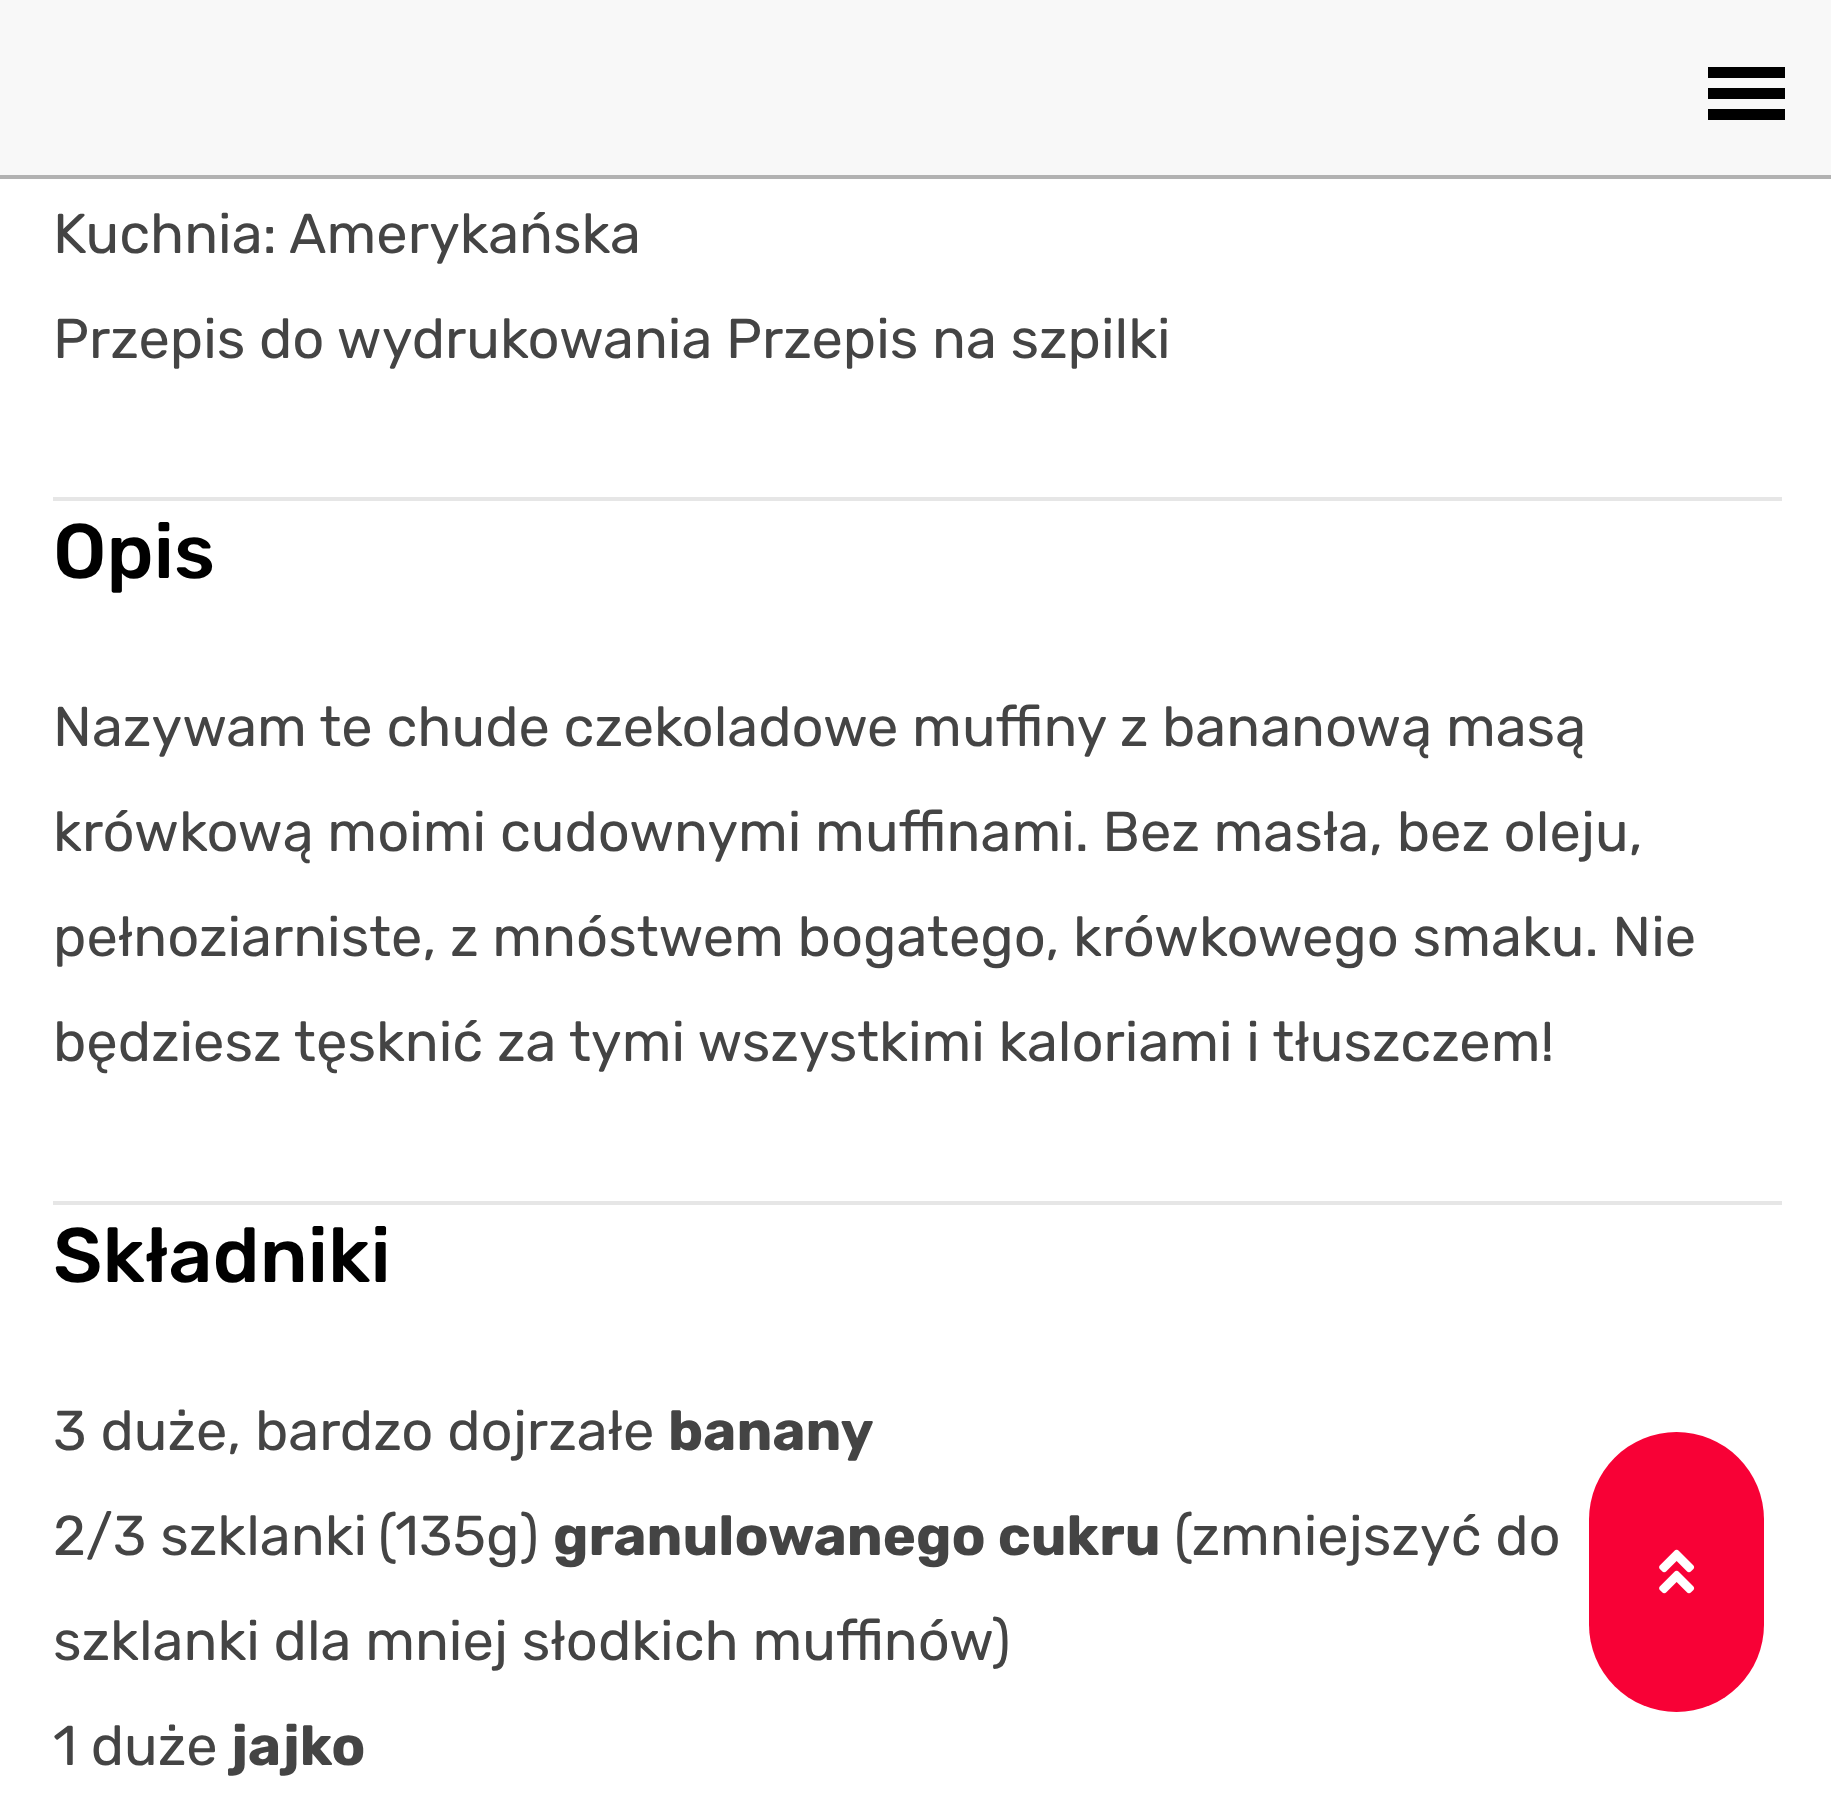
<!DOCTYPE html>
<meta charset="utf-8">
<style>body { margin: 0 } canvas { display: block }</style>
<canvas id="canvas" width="1831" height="1798"></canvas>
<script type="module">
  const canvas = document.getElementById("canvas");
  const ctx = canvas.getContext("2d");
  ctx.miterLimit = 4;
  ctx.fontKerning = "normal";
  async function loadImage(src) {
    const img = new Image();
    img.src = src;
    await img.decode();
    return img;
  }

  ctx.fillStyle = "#ffffff";
  ctx.fillRect(0, 0, 1831, 1798);
  ctx.fillStyle = "#b2b2b2";
  ctx.fillRect(0, 175, 1831, 4);
  ctx.fillStyle = "#f8f8f8";
  ctx.fillRect(0, 0, 1831, 175);
  ctx.fillStyle = "#000000";
  ctx.fillRect(1708, 67, 77, 11);
  ctx.fillRect(1708, 88, 77, 11);
  ctx.fillRect(1708, 109, 77, 11);
  ctx.font = "56px Rubik";
  ctx.fillStyle = "#444444";
  ctx.fillText("Kuchnia:", 53, 253);
  ctx.fillText("Amerykańska", 289, 253);
  ctx.fillText("Przepis do wydrukowania Przepis na szpilki", 53, 358);
  ctx.fillStyle = "#e6e6e6";
  ctx.fillRect(53, 497, 1729, 4);
  ctx.font = "500 77px Rubik";
  ctx.fillStyle = "#000000";
  ctx.fillText("Opis", 53, 578);
  ctx.font = "56px Rubik";
  ctx.fillStyle = "#444444";
  ctx.fillText("Nazywam te chude czekoladowe muffiny z bananową masą", 53, 746);
  ctx.fillText("krówkową moimi cudownymi muffinami. Bez masła, bez oleju,", 53, 851);
  ctx.fillText("pełnoziarniste, z mnóstwem bogatego, krówkowego smaku. Nie", 53, 956);
  ctx.fillText("będziesz tęsknić za tymi wszystkimi kaloriami i tłuszczem!", 53, 1061);
  ctx.fillStyle = "#e6e6e6";
  ctx.fillRect(53, 1201, 1729, 4);
  ctx.font = "500 77px Rubik";
  ctx.fillStyle = "#000000";
  ctx.fillText("Składniki", 53, 1282);
  ctx.font = "56px Rubik";
  ctx.fillStyle = "#444444";
  ctx.fillText("3 duże, bardzo dojrzałe", 53, 1450);
  ctx.font = "bold 56px Rubik";
  ctx.fillText("banany", 668, 1450);
  ctx.font = "56px Rubik";
  ctx.fillText("2/3 szklanki", 53, 1555);
  ctx.fillText("(135g", 378, 1555);
  ctx.fillText(")", 520, 1555);
  ctx.font = "bold 56px Rubik";
  ctx.fillText("granulowanego cukru", 553, 1555);
  ctx.font = "56px Rubik";
  ctx.fillText("(zmniejszyć do", 1174, 1555);
  ctx.fillText("szklanki dla mniej słodkich muffinów)", 53, 1660);
  ctx.fillText("1 duże", 53, 1765);
  ctx.font = "bold 56px Rubik";
  ctx.fillText("jajko", 231, 1765);
  ctx.fillStyle = "#f80136";
  ctx.beginPath();
  ctx.roundRect(1589, 1432, 175, 280, 87.5);
  ctx.fill();
  ctx.drawImage(await loadImage("img1.png"), 1659, 1549, 36, 45);
</script>
